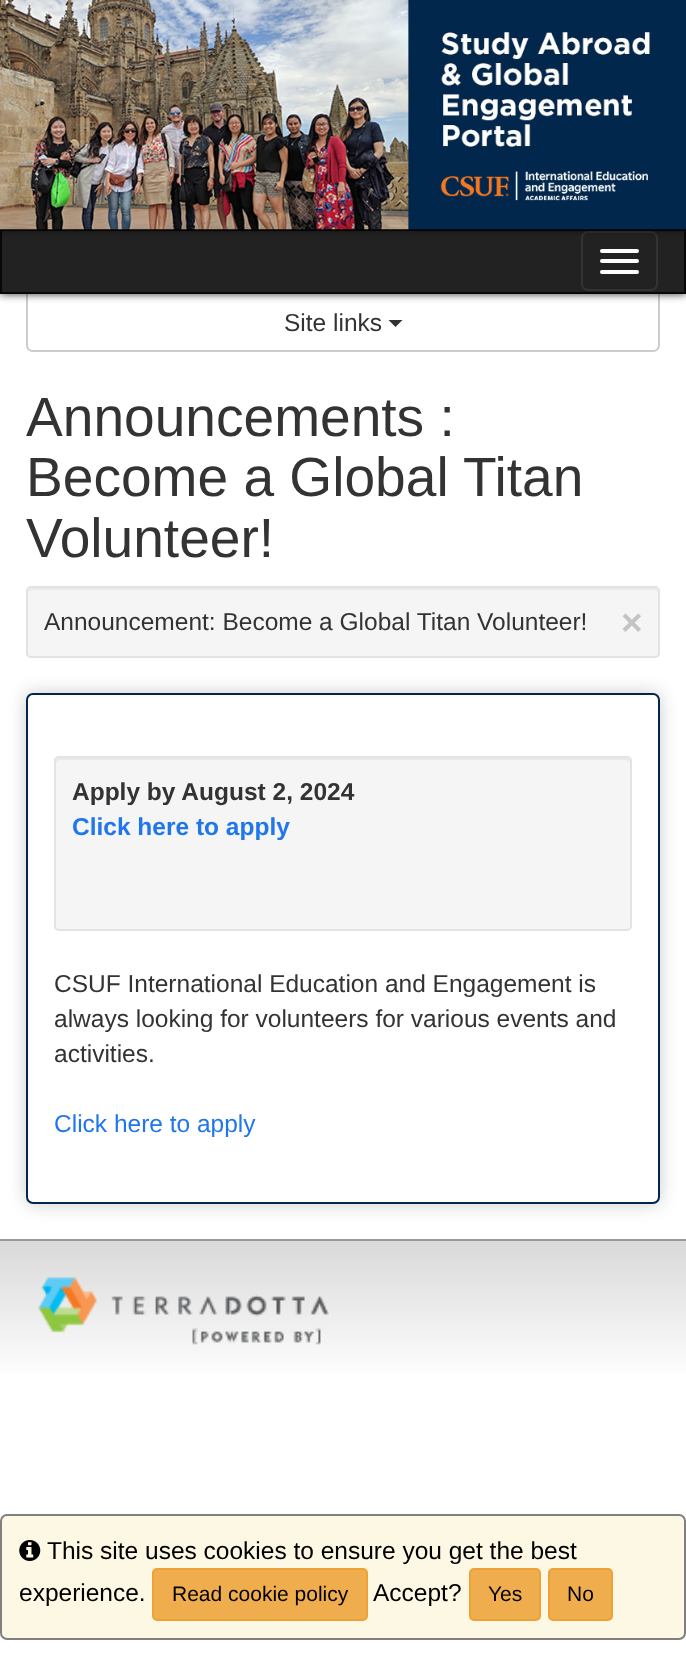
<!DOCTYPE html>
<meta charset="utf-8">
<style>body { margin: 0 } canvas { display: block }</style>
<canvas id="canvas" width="686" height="1674"></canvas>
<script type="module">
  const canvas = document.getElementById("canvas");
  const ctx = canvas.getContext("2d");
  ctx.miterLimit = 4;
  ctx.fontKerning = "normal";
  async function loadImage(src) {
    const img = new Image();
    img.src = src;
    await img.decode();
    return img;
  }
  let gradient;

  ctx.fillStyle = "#ffffff";
  ctx.fillRect(0, 0, 686, 1674);
  ctx.fillStyle = "#cccccc";
  ctx.beginPath();
  ctx.moveTo(26, 294);
  ctx.lineTo(660, 294);
  ctx.lineTo(660, 345);
  ctx.bezierCurveTo(660, 349, 657, 352, 653, 352);
  ctx.lineTo(33, 352);
  ctx.bezierCurveTo(29, 352, 26, 349, 26, 345);
  ctx.closePath();
  ctx.moveTo(28, 294);
  ctx.lineTo(658, 294);
  ctx.lineTo(658, 345);
  ctx.bezierCurveTo(658, 348, 656, 350, 653, 350);
  ctx.lineTo(33, 350);
  ctx.bezierCurveTo(30, 350, 28, 348, 28, 345);
  ctx.closePath();
  ctx.fill("evenodd");
  ctx.fillStyle = "rgba(0, 0, 0, 0.8)";
  ctx.filter = "blur(4.5px)";
  ctx.beginPath();
  ctx.rect(0, 229, 686, 65);
  ctx.fill();
  ctx.filter = "none";
  ctx.fillStyle = "#222222";
  ctx.beginPath();
  ctx.rect(1, 230, 684, 63);
  ctx.fill();
  ctx.strokeStyle = "#080808";
  ctx.lineWidth = 2;
  ctx.stroke();
  ctx.beginPath();
  ctx.roundRect(582, 232, 75, 58, 6);
  ctx.strokeStyle = "#333333";
  ctx.stroke();
  ctx.fillStyle = "rgba(0, 0, 0, 0.8)";
  ctx.filter = "blur(4.5px)";
  ctx.beginPath();
  ctx.rect(0, 0, 686, 229);
  ctx.fill();
  ctx.filter = "none";
  ctx.drawImage(await loadImage("img1.png"), 0, 0, 686, 230);
  ctx.fillStyle = "#ffffff";
  ctx.beginPath();
  ctx.roundRect(600, 249, 39, 4, 2);
  ctx.fill();
  ctx.beginPath();
  ctx.roundRect(600, 259, 39, 4, 2);
  ctx.fill();
  ctx.beginPath();
  ctx.roundRect(600, 270, 39, 4, 2);
  ctx.fill();
  ctx.font = "24.5px Liberation Sans";
  ctx.fillStyle = "#333333";
  ctx.fillText("Site links", 284, 331);
  ctx.beginPath();
  ctx.moveTo(388.5, 320);
  ctx.lineTo(402.5, 320);
  ctx.lineTo(395.5, 327);
  ctx.closePath();
  ctx.fill();
  ctx.font = "55.1px Liberation Sans";
  ctx.fillText("Announcements :", 26, 436);
  ctx.fillText("Become a Global Titan", 26, 496);
  ctx.fillText("Volunteer!", 26, 557);
  ctx.fillStyle = "#f5f5f5";
  ctx.beginPath();
  ctx.roundRect(26, 586, 634, 72, 5);
  ctx.fill();
  ctx.fillStyle = "#e9e9e9";
  ctx.beginPath();
  ctx.moveTo(32, 590);
  ctx.lineTo(654, 590);
  ctx.bezierCurveTo(656, 590, 658, 591, 658, 593);
  ctx.bezierCurveTo(658, 590, 657, 588, 654, 588);
  ctx.lineTo(32, 588);
  ctx.bezierCurveTo(29, 588, 28, 590, 28, 593);
  ctx.bezierCurveTo(28, 591, 30, 590, 32, 590);
  ctx.closePath();
  ctx.fill();
  ctx.beginPath();
  ctx.roundRect(27, 587, 632, 70, 4);
  ctx.strokeStyle = "#e3e3e3";
  ctx.stroke();
  ctx.font = "24.5px Liberation Sans";
  ctx.fillStyle = "#333333";
  ctx.fillText("Announcement: Become a Global Titan Volunteer!", 44, 630);
  ctx.font = "bold 37px Liberation Sans";
  ctx.fillStyle = "#c4c4c4";
  ctx.fillText("×", 621, 635);
  ctx.fillStyle = "rgba(0, 0, 0, 0.2)";
  ctx.filter = "blur(9px)";
  ctx.beginPath();
  ctx.roundRect(26, 693, 634, 511, 7);
  ctx.fill();
  ctx.filter = "none";
  ctx.fillStyle = "#ffffff";
  ctx.beginPath();
  ctx.roundRect(27, 694, 632, 509, 6);
  ctx.fill();
  ctx.strokeStyle = "#02274c";
  ctx.stroke();
  ctx.fillStyle = "#f5f5f5";
  ctx.beginPath();
  ctx.roundRect(54, 756, 578, 175, 5);
  ctx.fill();
  ctx.fillStyle = "#e9e9e9";
  ctx.beginPath();
  ctx.moveTo(60, 760);
  ctx.lineTo(626, 760);
  ctx.bezierCurveTo(628, 760, 630, 761, 630, 763);
  ctx.bezierCurveTo(630, 760, 629, 758, 626, 758);
  ctx.lineTo(60, 758);
  ctx.bezierCurveTo(57, 758, 56, 760, 56, 763);
  ctx.bezierCurveTo(56, 761, 58, 760, 60, 760);
  ctx.closePath();
  ctx.fill();
  ctx.beginPath();
  ctx.roundRect(55, 757, 576, 173, 4);
  ctx.strokeStyle = "#e3e3e3";
  ctx.stroke();
  ctx.font = "bold 24.5px Liberation Sans";
  ctx.fillStyle = "#333333";
  ctx.fillText("Apply by August 2, 2024", 72, 800);
  ctx.fillStyle = "#2076eb";
  ctx.fillText("Click here to apply", 72, 835);
  ctx.font = "24.5px Liberation Sans";
  ctx.fillStyle = "#333333";
  ctx.fillText("CSUF International Education and Engagement is", 54, 992);
  ctx.fillText("always looking for volunteers for various events and", 54, 1027);
  ctx.fillText("activities.", 54, 1062);
  ctx.fillStyle = "#2076eb";
  ctx.fillText("Click here to apply", 54, 1132);
  gradient = ctx.createLinearGradient(343, 1416, 343, 1241);
  gradient.addColorStop(0.2, "#ffffff");
  gradient.addColorStop(1, "#d9d9d9");
  ctx.fillStyle = gradient;
  ctx.fillRect(0, 1241, 686, 131);
  ctx.fillStyle = "#999999";
  ctx.fillRect(0, 1239, 686, 2);
  ctx.drawImage(await loadImage("img2.png"), 38, 1277, 291, 68);
  ctx.fillStyle = "#fcf8e3";
  ctx.beginPath();
  ctx.roundRect(1, 1515, 684, 124, 6);
  ctx.fill();
  ctx.strokeStyle = "#808080";
  ctx.stroke();
  ctx.drawImage(await loadImage("img3.png"), 19, 1540, 22, 21);
  ctx.fillStyle = "#000000";
  ctx.fillText("This site uses cookies to ensure you get the best", 47, 1559);
  ctx.fillText("experience.", 19, 1601);
  ctx.fillStyle = "#f0ad4e";
  ctx.beginPath();
  ctx.roundRect(153, 1569, 214, 51, 4);
  ctx.fill();
  ctx.strokeStyle = "#eea236";
  ctx.stroke();
  ctx.font = "21px Liberation Sans";
  ctx.fillStyle = "#000000";
  ctx.fillText("Read cookie policy", 172, 1601);
  ctx.font = "24.5px Liberation Sans";
  ctx.fillText("Accept?", 373, 1601);
  ctx.fillStyle = "#f0ad4e";
  ctx.beginPath();
  ctx.roundRect(470, 1569, 70, 51, 4);
  ctx.fill();
  ctx.stroke();
  ctx.font = "21px Liberation Sans";
  ctx.fillStyle = "#000000";
  ctx.fillText("Yes", 488, 1601);
  ctx.fillStyle = "#f0ad4e";
  ctx.beginPath();
  ctx.roundRect(549, 1569, 63, 51, 4);
  ctx.fill();
  ctx.stroke();
  ctx.fillStyle = "#000000";
  ctx.fillText("No", 567, 1601);
</script>
